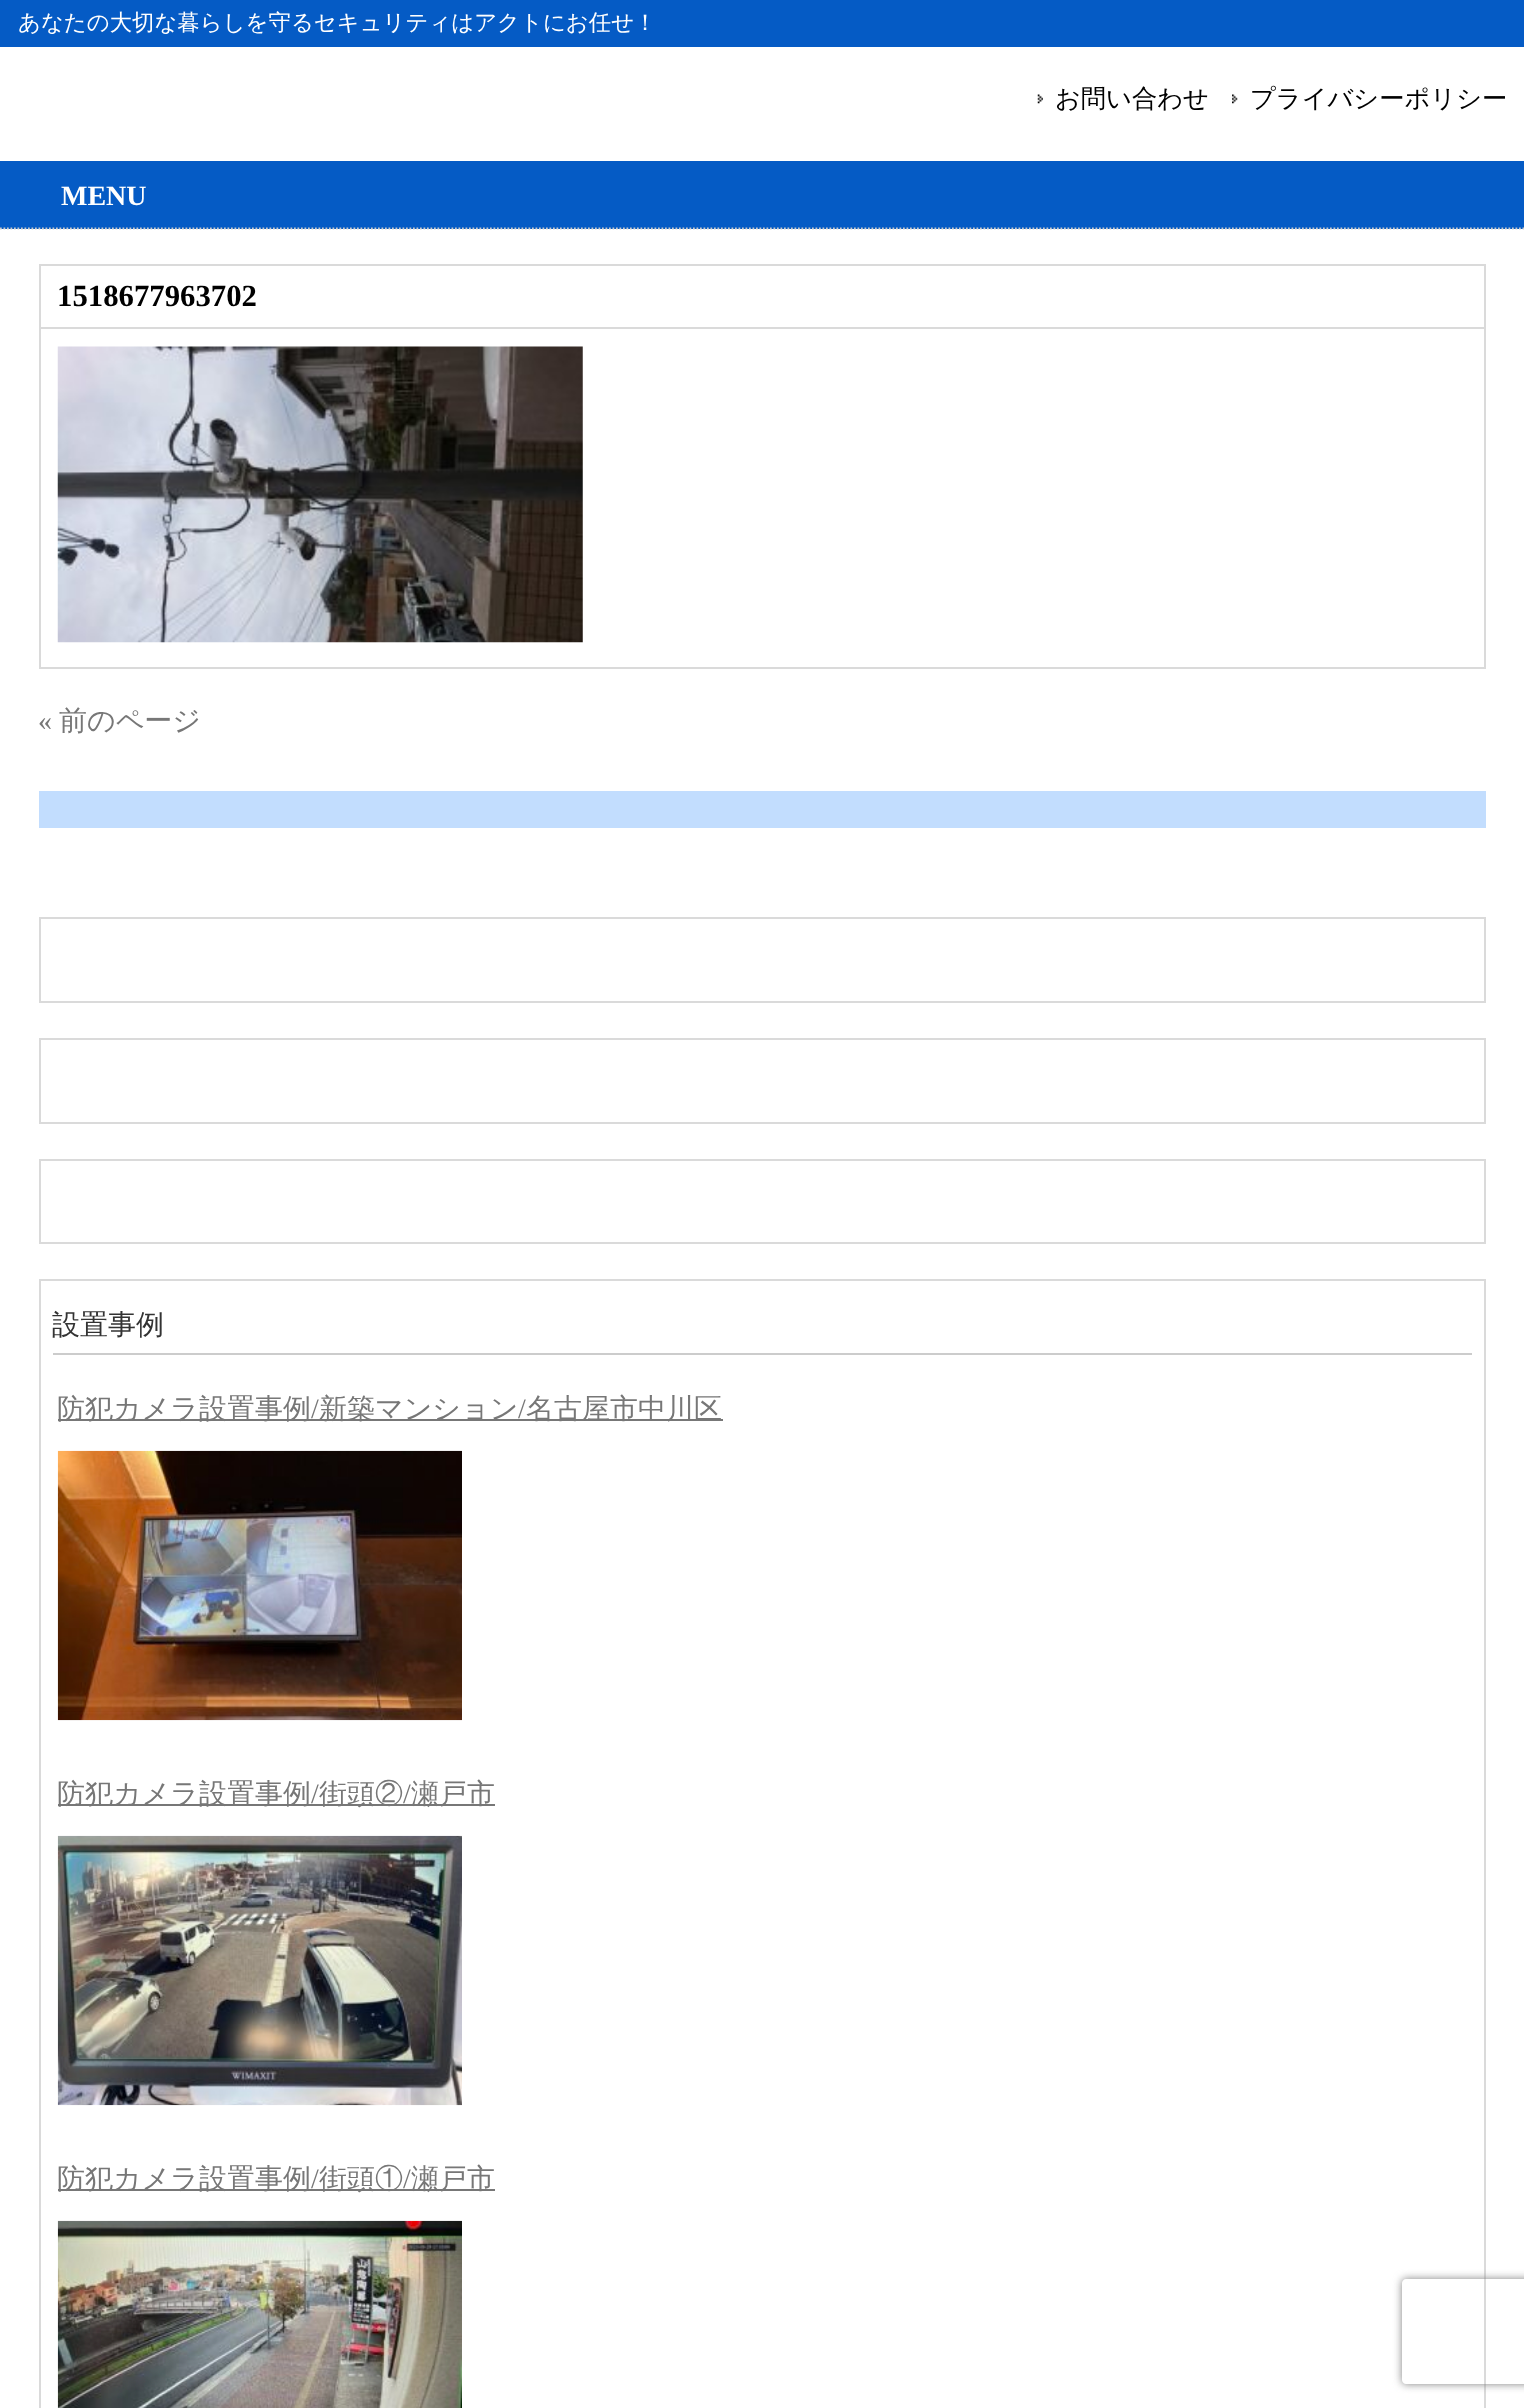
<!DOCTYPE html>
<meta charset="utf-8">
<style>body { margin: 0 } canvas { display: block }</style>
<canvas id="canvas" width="1524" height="2408"></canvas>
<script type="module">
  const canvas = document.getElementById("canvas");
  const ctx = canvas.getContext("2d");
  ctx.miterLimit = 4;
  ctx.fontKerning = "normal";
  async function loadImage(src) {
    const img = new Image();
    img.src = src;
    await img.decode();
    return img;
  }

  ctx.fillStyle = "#ffffff";
  ctx.fillRect(0, 0, 1524, 2408);
  ctx.fillStyle = "#055bc5";
  ctx.fillRect(0, 0, 1524, 47);
  ctx.font = "500 22.4px WenQuanYi Zen Hei";
  ctx.fillStyle = "#ffffff";
  ctx.fillText("あなたの大切な暮らしを守るセキュリティはアクトにお任せ！", 18, 30);
  ctx.drawImage(await loadImage("img1.png"), 1037, 94, 6, 10);
  ctx.font = "500 25.25px WenQuanYi Zen Hei";
  ctx.fillStyle = "#000000";
  ctx.fillText("お問い合わせ", 1055, 107);
  ctx.drawImage(await loadImage("img2.png"), 1232, 94, 6, 10);
  ctx.fillText("プライバシーポリシー", 1250, 107);
  ctx.fillStyle = "#055bc5";
  ctx.fillRect(0, 161, 1524, 68);
  ctx.beginPath();
  ctx.moveTo(0, 228.5);
  ctx.lineTo(1524, 228.5);
  ctx.strokeStyle = "#cccccc";
  ctx.lineWidth = 1.8;
  ctx.setLineDash([1.75, 1.75]);
  ctx.stroke();
  ctx.font = "bold 28px Liberation Serif";
  ctx.fillStyle = "#ffffff";
  ctx.fillText("MENU", 61, 205);
  ctx.fillStyle = "#dadada";
  ctx.fillRect(39, 264, 1447, 2);
  ctx.fillRect(1484, 264, 2, 63);
  ctx.fillRect(39, 264, 2, 63);
  ctx.font = "bold 30.75px Liberation Serif";
  ctx.fillStyle = "#000000";
  ctx.fillText("1518677963702", 57, 306);
  ctx.strokeStyle = "#dadada";
  ctx.lineWidth = 2;
  ctx.setLineDash([]);
  ctx.strokeRect(40, 328, 1445, 340);
  ctx.drawImage(await loadImage("img3.png"), 57, 346, 526, 297);
  ctx.font = "28px Liberation Serif";
  ctx.fillStyle = "#777777";
  ctx.fillText("«", 38, 730);
  ctx.font = "500 28px WenQuanYi Zen Hei";
  ctx.fillText("前のページ", 59, 730);
  ctx.fillStyle = "#c2ddfe";
  ctx.fillRect(39, 791, 1447, 37);
  ctx.strokeRect(40, 918, 1445, 84);
  ctx.strokeRect(40, 1039, 1445, 84);
  ctx.strokeRect(40, 1160, 1445, 83);
  ctx.strokeRect(40, 1280, 1445, 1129);
  ctx.fillStyle = "#cccccc";
  ctx.fillRect(53, 1353, 1419, 2);
  ctx.fillStyle = "#333333";
  ctx.fillText("設置事例", 52, 1334);
  ctx.fillStyle = "#777777";
  ctx.fillRect(58, 1419, 665, 2);
  ctx.fillText("防犯カメラ設置事例", 57, 1418);
  ctx.font = "28px Liberation Serif";
  ctx.fillText("/", 311, 1418);
  ctx.font = "500 28px WenQuanYi Zen Hei";
  ctx.fillText("新築マンション", 319, 1418);
  ctx.font = "28px Liberation Serif";
  ctx.fillText("/", 518, 1418);
  ctx.font = "500 28px WenQuanYi Zen Hei";
  ctx.fillText("名古屋市中川区", 526, 1418);
  ctx.drawImage(await loadImage("img4.png"), 57, 1450, 405, 271);
  ctx.fillRect(58, 1804, 437, 2);
  ctx.fillText("防犯カメラ設置事例", 57, 1803);
  ctx.font = "28px Liberation Serif";
  ctx.fillText("/", 311, 1803);
  ctx.font = "500 28px WenQuanYi Zen Hei";
  ctx.fillText("街頭②", 319, 1803);
  ctx.font = "28px Liberation Serif";
  ctx.fillText("/", 403, 1803);
  ctx.font = "500 28px WenQuanYi Zen Hei";
  ctx.fillText("瀬戸市", 411, 1803);
  ctx.drawImage(await loadImage("img5.png"), 57, 1835, 405, 271);
  ctx.fillRect(58, 2189, 437, 2);
  ctx.fillText("防犯カメラ設置事例", 57, 2188);
  ctx.font = "28px Liberation Serif";
  ctx.fillText("/", 311, 2188);
  ctx.font = "500 28px WenQuanYi Zen Hei";
  ctx.fillText("街頭①", 319, 2188);
  ctx.font = "28px Liberation Serif";
  ctx.fillText("/", 403, 2188);
  ctx.font = "500 28px WenQuanYi Zen Hei";
  ctx.fillText("瀬戸市", 411, 2188);
  ctx.drawImage(await loadImage("img6.png"), 57, 2220, 405, 188);
  ctx.save();
  ctx.beginPath();
  ctx.moveTo(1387, 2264);
  ctx.lineTo(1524, 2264);
  ctx.lineTo(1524, 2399);
  ctx.lineTo(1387, 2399);
  ctx.closePath();
  ctx.moveTo(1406, 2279);
  ctx.lineTo(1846, 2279);
  ctx.bezierCurveTo(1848, 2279, 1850, 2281, 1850, 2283);
  ctx.lineTo(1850, 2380);
  ctx.bezierCurveTo(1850, 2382, 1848, 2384, 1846, 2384);
  ctx.lineTo(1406, 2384);
  ctx.bezierCurveTo(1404, 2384, 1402, 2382, 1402, 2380);
  ctx.lineTo(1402, 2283);
  ctx.bezierCurveTo(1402, 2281, 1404, 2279, 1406, 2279);
  ctx.closePath();
  ctx.clip("evenodd");
  ctx.fillStyle = "#808080";
  ctx.filter = "blur(4.5px)";
  ctx.beginPath();
  ctx.roundRect(1402, 2279, 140, 105, 4);
  ctx.fill();
  ctx.filter = "none";
  ctx.restore();
</script>
